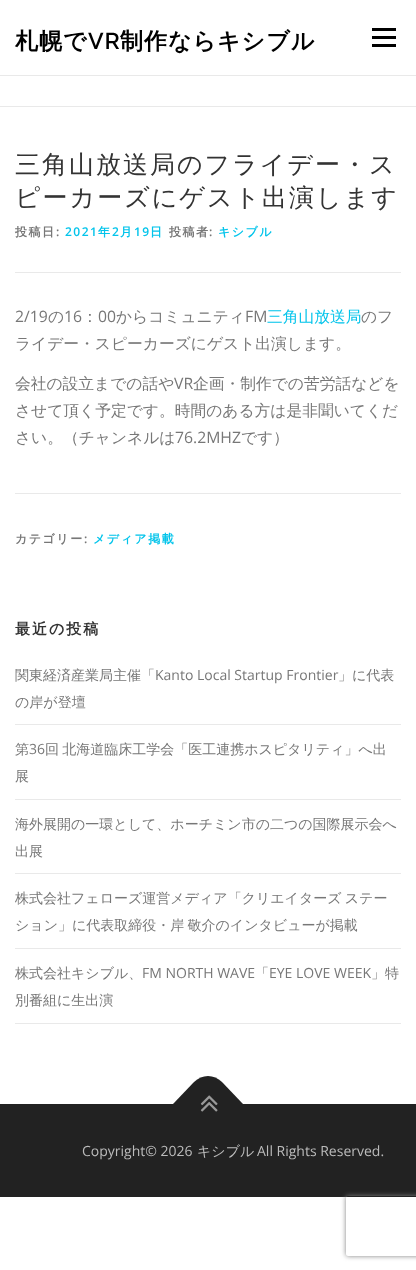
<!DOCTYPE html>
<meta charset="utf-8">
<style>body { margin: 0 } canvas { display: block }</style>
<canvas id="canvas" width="416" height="1270"></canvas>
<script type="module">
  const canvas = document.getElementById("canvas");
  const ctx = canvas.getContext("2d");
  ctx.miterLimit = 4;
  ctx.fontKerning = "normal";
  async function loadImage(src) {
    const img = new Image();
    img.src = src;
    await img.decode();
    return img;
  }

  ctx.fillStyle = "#ffffff";
  ctx.fillRect(0, 0, 416, 1270);
  ctx.letterSpacing = "1px";
  ctx.font = "bold 23px WenQuanYi Zen Hei";
  ctx.fillStyle = "#000000";
  ctx.fillText("札幌で", 15, 49);
  ctx.font = "600 23px Raleway";
  ctx.fillText("VR", 88, 49);
  ctx.font = "bold 23px WenQuanYi Zen Hei";
  ctx.fillText("制作ならキシブル", 120, 49);
  ctx.fillRect(372, 36, 24, 3);
  ctx.fillRect(372, 28, 24, 3);
  ctx.fillRect(372, 44, 24, 3);
  ctx.fillStyle = "#e9e9e9";
  ctx.fillRect(0, 75, 416, 1);
  ctx.fillRect(0, 106, 416, 1);
  ctx.letterSpacing = "2px";
  ctx.font = "500 25px WenQuanYi Zen Hei";
  ctx.fillStyle = "#333333";
  ctx.fillText("三角山放送局のフライデー・ス", 15, 173);
  ctx.fillText("ピーカーズにゲスト出演します", 15, 206);
  ctx.fillStyle = "#e9e9e9";
  ctx.fillRect(15, 272, 386, 1);
  ctx.letterSpacing = "1.5px";
  ctx.font = "bold 12px WenQuanYi Zen Hei";
  ctx.fillStyle = "#777777";
  ctx.fillText("投稿日", 15, 236);
  ctx.font = "600 12px Open Sans";
  ctx.fillText(":", 56, 236);
  ctx.fillStyle = "#03c4eb";
  ctx.fillText("2021", 65, 236);
  ctx.font = "bold 12px WenQuanYi Zen Hei";
  ctx.fillText("年", 98, 236);
  ctx.font = "600 12px Open Sans";
  ctx.fillText("2", 112, 236);
  ctx.font = "bold 12px WenQuanYi Zen Hei";
  ctx.fillText("月", 120, 236);
  ctx.font = "600 12px Open Sans";
  ctx.fillText("19", 134, 236);
  ctx.font = "bold 12px WenQuanYi Zen Hei";
  ctx.fillText("日", 150, 236);
  ctx.fillStyle = "#777777";
  ctx.fillText("投稿者", 169, 236);
  ctx.font = "600 12px Open Sans";
  ctx.fillText(":", 209, 236);
  ctx.font = "bold 12px WenQuanYi Zen Hei";
  ctx.fillStyle = "#03c4eb";
  ctx.fillText("キシブル", 218, 236);
  ctx.letterSpacing = "0px";
  ctx.font = "15.75px Open Sans";
  ctx.fillStyle = "#777777";
  ctx.fillText("2/19", 15, 322);
  ctx.font = "500 15.75px WenQuanYi Zen Hei";
  ctx.fillText("の", 48, 322);
  ctx.font = "15.75px Open Sans";
  ctx.fillText("16", 64, 322);
  ctx.font = "500 15.75px WenQuanYi Zen Hei";
  ctx.fillText("：", 82, 322);
  ctx.font = "15.75px Open Sans";
  ctx.fillText("00", 98, 322);
  ctx.font = "500 15.75px WenQuanYi Zen Hei";
  ctx.fillText("からコミュニティ", 116, 322);
  ctx.font = "15.75px Open Sans";
  ctx.fillText("FM", 245, 322);
  ctx.font = "500 15.75px WenQuanYi Zen Hei";
  ctx.fillStyle = "#03c4eb";
  ctx.fillText("三角山放送局", 267, 322);
  ctx.fillStyle = "#777777";
  ctx.fillText("のフ", 361, 322);
  ctx.fillText("ライデー・スピーカーズにゲスト出演します。", 15, 349);
  ctx.fillText("会社の設立までの話や", 15, 389);
  ctx.font = "15.75px Open Sans";
  ctx.fillText("VR", 174, 389);
  ctx.font = "500 15.75px WenQuanYi Zen Hei";
  ctx.fillText("企画・制作での苦労話などを", 193, 389);
  ctx.fillText("させて頂く予定です。時間のある方は是非聞いてくだ", 15, 416);
  ctx.fillText("さい。（チャンネルは", 15, 443);
  ctx.font = "15.75px Open Sans";
  ctx.fillText("76.2MHZ", 175, 443);
  ctx.font = "500 15.75px WenQuanYi Zen Hei";
  ctx.fillText("です）", 241, 443);
  ctx.fillStyle = "#e9e9e9";
  ctx.fillRect(15, 493, 386, 1);
  ctx.letterSpacing = "1.5px";
  ctx.font = "bold 12px WenQuanYi Zen Hei";
  ctx.fillStyle = "#777777";
  ctx.fillText("カテゴリー", 15, 543);
  ctx.font = "600 12px Open Sans";
  ctx.fillText(":", 84, 543);
  ctx.font = "bold 12px WenQuanYi Zen Hei";
  ctx.fillStyle = "#03c4eb";
  ctx.fillText("メディア掲載", 93, 543);
  ctx.letterSpacing = "2px";
  ctx.font = "bold 15px WenQuanYi Zen Hei";
  ctx.fillStyle = "#333333";
  ctx.fillText("最近の投稿", 15, 634);
  ctx.fillStyle = "#e9e9e9";
  ctx.fillRect(15, 724, 386, 1);
  ctx.letterSpacing = "0px";
  ctx.font = "500 14px WenQuanYi Zen Hei";
  ctx.fillStyle = "#777777";
  ctx.fillText("関東経済産業局主催「", 15, 680);
  ctx.font = "14px Open Sans";
  ctx.fillText("Kanto Local Startup Frontier", 155, 680);
  ctx.font = "500 14px WenQuanYi Zen Hei";
  ctx.fillText("」に代表", 338, 680);
  ctx.fillText("の岸が登壇", 15, 707);
  ctx.fillStyle = "#e9e9e9";
  ctx.fillRect(15, 799, 386, 1);
  ctx.fillStyle = "#777777";
  ctx.fillText("第", 15, 754);
  ctx.font = "14px Open Sans";
  ctx.fillText("36", 29, 754);
  ctx.wordSpacing = "-1px";
  ctx.font = "500 14px WenQuanYi Zen Hei";
  ctx.fillText("回 北海道臨床工学会「医工連携ホスピタリティ」へ出", 45, 754);
  ctx.wordSpacing = "0px";
  ctx.fillText("展", 15, 781);
  ctx.fillStyle = "#e9e9e9";
  ctx.fillRect(15, 873, 386, 1);
  ctx.fillStyle = "#777777";
  ctx.fillText("海外展開の一環として、ホーチミン市の二つの国際展示会へ", 15, 829);
  ctx.fillText("出展", 15, 856);
  ctx.fillStyle = "#e9e9e9";
  ctx.fillRect(15, 948, 386, 1);
  ctx.wordSpacing = "-1px";
  ctx.fillStyle = "#777777";
  ctx.fillText("株式会社フェローズ運営メディア「クリエイターズ ステー", 15, 903);
  ctx.fillText("ション」に代表取締役・岸 敬介のインタビューが掲載", 15, 930);
  ctx.fillStyle = "#e9e9e9";
  ctx.fillRect(15, 1023, 386, 1);
  ctx.wordSpacing = "0px";
  ctx.fillStyle = "#777777";
  ctx.fillText("株式会社キシブル、", 15, 978);
  ctx.font = "14px Open Sans";
  ctx.fillText("FM NORTH WAVE", 142, 978);
  ctx.font = "500 14px WenQuanYi Zen Hei";
  ctx.fillText("「", 255, 978);
  ctx.font = "14px Open Sans";
  ctx.fillText("EYE LOVE WEEK", 269, 978);
  ctx.font = "500 14px WenQuanYi Zen Hei";
  ctx.fillText("」特", 371, 978);
  ctx.fillText("別番組に生出演", 15, 1005);
  ctx.fillStyle = "#222222";
  ctx.fillRect(0, 1104, 416, 93);
  ctx.beginPath();
  ctx.moveTo(173, 1104);
  ctx.lineTo(194, 1082);
  ctx.bezierCurveTo(202, 1074, 214, 1074, 222, 1082);
  ctx.lineTo(243, 1104);
  ctx.lineTo(208, 1139);
  ctx.closePath();
  ctx.fill();
  ctx.drawImage(await loadImage("img1.png"), 200, 1095, 18, 17);
  ctx.font = "14px Open Sans";
  ctx.fillStyle = "#bbbbbb";
  ctx.fillText("Copyright© 2026", 82, 1156);
  ctx.font = "500 14px WenQuanYi Zen Hei";
  ctx.fillText("キシブル", 197, 1156);
  ctx.font = "14px Open Sans";
  ctx.fillText("All Rights Reserved.", 257, 1156);
  ctx.save();
  ctx.beginPath();
  ctx.moveTo(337, 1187);
  ctx.lineTo(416, 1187);
  ctx.lineTo(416, 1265);
  ctx.lineTo(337, 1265);
  ctx.closePath();
  ctx.moveTo(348, 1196);
  ctx.lineTo(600, 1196);
  ctx.bezierCurveTo(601, 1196, 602, 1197, 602, 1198);
  ctx.lineTo(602, 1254);
  ctx.bezierCurveTo(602, 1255, 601, 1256, 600, 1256);
  ctx.lineTo(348, 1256);
  ctx.bezierCurveTo(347, 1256, 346, 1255, 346, 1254);
  ctx.lineTo(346, 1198);
  ctx.bezierCurveTo(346, 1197, 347, 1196, 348, 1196);
  ctx.closePath();
  ctx.clip("evenodd");
  ctx.fillStyle = "#808080";
  ctx.filter = "blur(2.5px)";
  ctx.beginPath();
  ctx.roundRect(346, 1196, 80, 60, 2);
  ctx.fill();
  ctx.filter = "none";
  ctx.restore();
</script>
